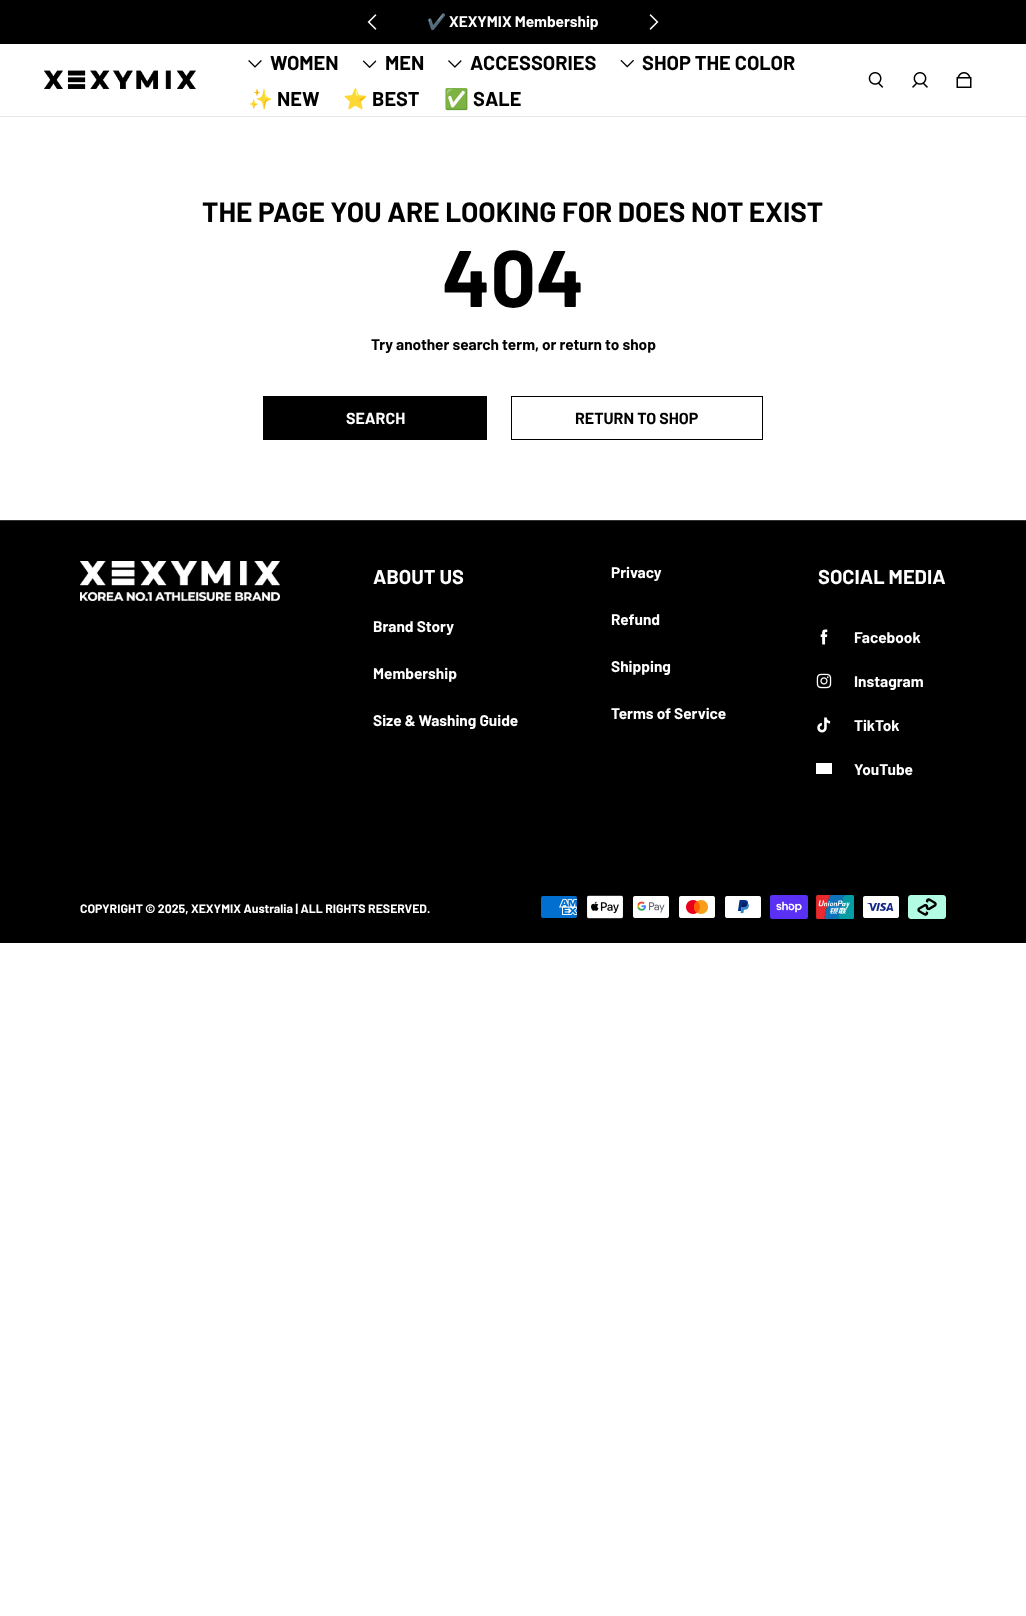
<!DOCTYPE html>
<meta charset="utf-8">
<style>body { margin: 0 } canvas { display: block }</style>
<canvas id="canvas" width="1026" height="1616"></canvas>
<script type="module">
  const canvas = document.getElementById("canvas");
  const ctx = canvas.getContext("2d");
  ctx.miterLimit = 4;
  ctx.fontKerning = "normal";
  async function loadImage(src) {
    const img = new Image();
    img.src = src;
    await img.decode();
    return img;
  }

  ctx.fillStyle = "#ffffff";
  ctx.fillRect(0, 0, 1026, 1616);
  ctx.fillStyle = "#000000";
  ctx.fillRect(0, 0, 1026, 44);
  ctx.drawImage(await loadImage("img1.png"), 367, 14, 10, 16);
  ctx.font = "bold 15.4px Noto Color Emoji";
  ctx.fillStyle = "#ffffff";
  ctx.fillText("✔️", 427, 27);
  ctx.font = "bold 15.4px Barlow";
  ctx.fillText("XEXYMIX Membership", 449, 27);
  ctx.drawImage(await loadImage("img2.png"), 649, 14, 10, 16);
  ctx.fillStyle = "#e6e6e6";
  ctx.fillRect(0, 116, 1026, 1);
  ctx.drawImage(await loadImage("img3.png"), 44, 70, 152, 19);
  ctx.drawImage(await loadImage("img4.png"), 248, 60, 14, 8);
  ctx.font = "bold 20px Barlow";
  ctx.fillStyle = "#000000";
  ctx.fillText("WOMEN", 270, 70);
  ctx.drawImage(await loadImage("img5.png"), 362, 60, 15, 9);
  ctx.fillText("MEN", 385, 70);
  ctx.drawImage(await loadImage("img6.png"), 448, 60, 14, 8);
  ctx.fillText("ACCESSORIES", 470, 70);
  ctx.drawImage(await loadImage("img7.png"), 620, 59, 14, 9);
  ctx.fillText("SHOP THE COLOR", 642, 70);
  ctx.font = "20px Noto Color Emoji";
  ctx.fillText("✨", 248, 106);
  ctx.font = "bold 20px Barlow";
  ctx.fillText("NEW", 277, 106);
  ctx.font = "20px Noto Color Emoji";
  ctx.fillText("⭐️", 343, 106);
  ctx.font = "bold 20px Barlow";
  ctx.fillText("BEST", 372, 106);
  ctx.font = "20px Noto Color Emoji";
  ctx.fillText("✅", 444, 106);
  ctx.font = "bold 20px Barlow";
  ctx.fillText("SALE", 473, 106);
  ctx.drawImage(await loadImage("img8.png"), 868, 72, 16, 16);
  ctx.drawImage(await loadImage("img9.png"), 912, 72, 16, 16);
  ctx.drawImage(await loadImage("img10.png"), 956, 72, 16, 16);
  ctx.font = "bold 28px Barlow";
  ctx.fillText("THE PAGE YOU ARE LOOKING FOR DOES NOT EXIST", 202, 222);
  ctx.font = "bold 80px Barlow";
  ctx.fillText("404", 442, 307);
  ctx.font = "bold 15.4px Barlow";
  ctx.fillText("Try another search term, or return to shop", 371, 350);
  ctx.strokeStyle = "#000000";
  ctx.strokeRect(263.5, 396.5, 223, 43);
  ctx.fillRect(264, 397, 222, 42);
  ctx.font = "bold 16px Barlow";
  ctx.fillStyle = "#ffffff";
  ctx.fillText("SEARCH", 346, 424);
  ctx.strokeRect(511.5, 396.5, 251, 43);
  ctx.fillStyle = "#000000";
  ctx.fillText("RETURN TO SHOP", 575, 424);
  ctx.fillRect(0, 521, 1026, 422);
  ctx.fillStyle = "#333333";
  ctx.fillRect(0, 520, 1026, 1);
  ctx.drawImage(await loadImage("img11.png"), 80, 561, 200, 40);
  ctx.font = "bold 20px Barlow";
  ctx.fillStyle = "#ffffff";
  ctx.fillText("ABOUT US", 373, 584);
  ctx.font = "bold 15.4px Barlow";
  ctx.fillText("Brand Story", 373, 632);
  ctx.fillText("Membership", 373, 679);
  ctx.fillText("Size & Washing Guide", 373, 726);
  ctx.fillText("Privacy", 611, 578);
  ctx.fillText("Refund", 611, 625);
  ctx.fillText("Shipping", 611, 672);
  ctx.fillText("Terms of Service", 611, 719);
  ctx.font = "bold 20px Barlow";
  ctx.fillText("SOCIAL MEDIA", 818, 584);
  ctx.drawImage(await loadImage("img12.png"), 820, 629, 8, 16);
  ctx.font = "bold 15.4px Barlow";
  ctx.fillText("Facebook", 854, 643);
  ctx.drawImage(await loadImage("img13.png"), 816, 673, 16, 16);
  ctx.fillText("Instagram", 854, 687);
  ctx.drawImage(await loadImage("img14.png"), 817, 717, 14, 16);
  ctx.fillText("TikTok", 854, 731);
  ctx.fillRect(816, 763, 16, 11);
  ctx.fillText("YouTube", 854, 775);
  ctx.font = "bold 12.3px Barlow";
  ctx.fillText("COPYRIGHT © 2025, XEXYMIX Australia | ALL RIGHTS RESERVED.", 80, 913);
  ctx.drawImage(await loadImage("img15.png"), 541, 896, 36, 22);
  ctx.drawImage(await loadImage("img16.png"), 587, 895, 36, 24);
  ctx.drawImage(await loadImage("img17.png"), 633, 896, 36, 22);
  ctx.drawImage(await loadImage("img18.png"), 679, 896, 36, 22);
  ctx.drawImage(await loadImage("img19.png"), 725, 896, 36, 22);
  ctx.drawImage(await loadImage("img20.png"), 770, 895, 38, 24);
  ctx.drawImage(await loadImage("img21.png"), 816, 895, 38, 24);
  ctx.drawImage(await loadImage("img22.png"), 863, 896, 36, 22);
  ctx.drawImage(await loadImage("img23.png"), 908, 895, 38, 24);
</script>
